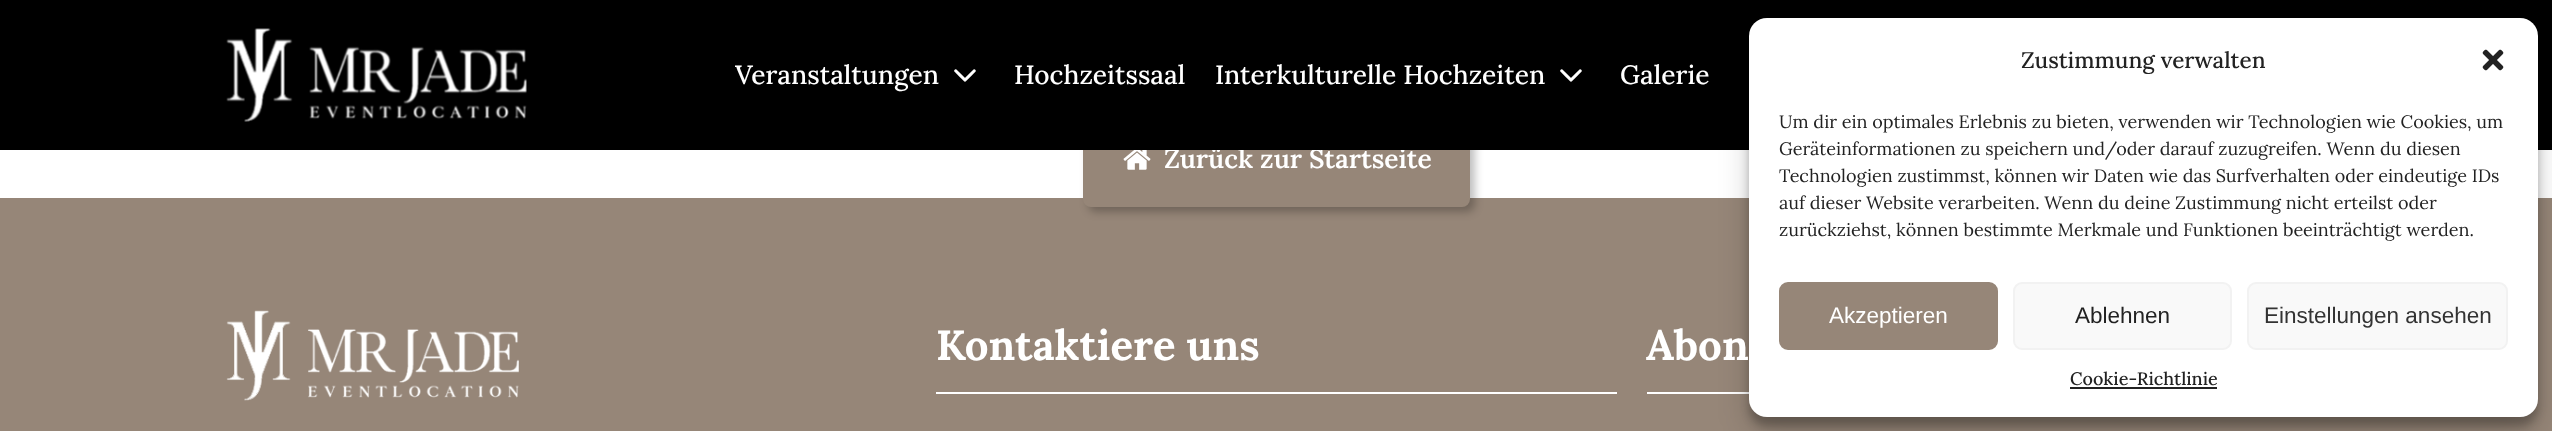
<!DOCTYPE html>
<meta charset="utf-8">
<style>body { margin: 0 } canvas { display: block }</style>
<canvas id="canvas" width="2552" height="431"></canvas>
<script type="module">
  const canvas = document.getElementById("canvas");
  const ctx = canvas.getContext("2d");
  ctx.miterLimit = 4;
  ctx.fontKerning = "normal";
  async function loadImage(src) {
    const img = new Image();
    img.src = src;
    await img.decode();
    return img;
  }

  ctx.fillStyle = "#ffffff";
  ctx.fillRect(0, 0, 2552, 431);
  ctx.fillStyle = "#968678";
  ctx.fillRect(0, 198, 2552, 233);
  ctx.fillStyle = "rgba(0, 0, 0, 0.25)";
  ctx.filter = "blur(4.5px)";
  ctx.beginPath();
  ctx.roundRect(1088, 116, 387, 96, 8);
  ctx.fill();
  ctx.filter = "none";
  ctx.fillStyle = "#968678";
  ctx.beginPath();
  ctx.roundRect(1084.5, 112.5, 384, 93, 6.5);
  ctx.fill();
  ctx.strokeStyle = "#968678";
  ctx.lineWidth = 3;
  ctx.stroke();
  ctx.font = "600 26.4px Lora";
  ctx.fillStyle = "#ffffff";
  ctx.fillText("Zurück zur Startseite", 1164, 168);
  ctx.fillStyle = "#000000";
  ctx.fillRect(0, 0, 2552, 150);
  ctx.drawImage(await loadImage("img1.png"), 226, 28, 301, 94);
  ctx.font = "500 26.4px Lora";
  ctx.fillStyle = "#ffffff";
  ctx.fillText("Veranstaltungen", 735, 84);
  ctx.drawImage(await loadImage("img2.png"), 954, 69, 22, 13);
  ctx.fillText("Hochzeitssaal", 1014, 84);
  ctx.fillText("Interkulturelle Hochzeiten", 1215, 84);
  ctx.drawImage(await loadImage("img2.png"), 1560, 69, 22, 13);
  ctx.fillText("Galerie", 1620, 84);
  ctx.fillRect(1647, 392, 102, 2);
  ctx.fillStyle = "rgba(0, 0, 0, 0.23)";
  ctx.filter = "blur(4.5px)";
  ctx.beginPath();
  ctx.roundRect(1749, 27, 789, 399, 18);
  ctx.fill();
  ctx.filter = "none";
  ctx.fillStyle = "rgba(0, 0, 0, 0.19)";
  ctx.filter = "blur(15px)";
  ctx.beginPath();
  ctx.roundRect(1749, 33, 789, 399, 18);
  ctx.fill();
  ctx.filter = "none";
  ctx.fillStyle = "#ffffff";
  ctx.beginPath();
  ctx.roundRect(1749, 18, 789, 399, 18);
  ctx.fill();
  ctx.font = "500 22.5px Lora";
  ctx.fillStyle = "#222222";
  ctx.fillText("Zustimmung verwalten", 2021, 68);
  ctx.drawImage(await loadImage("img3.png"), 2482, 49, 22, 22);
  ctx.font = "18px Lora";
  ctx.fillText("Um dir ein optimales Erlebnis zu bieten, verwenden wir Technologien wie Cookies, um", 1779, 128);
  ctx.fillText("Geräteinformationen zu speichern und/oder darauf zuzugreifen. Wenn du diesen", 1779, 155);
  ctx.fillText("Technologien zustimmst, können wir Daten wie das Surfverhalten oder eindeutige IDs", 1779, 182);
  ctx.fillText("auf dieser Website verarbeiten. Wenn du deine Zustimmung nicht erteilst oder", 1779, 209);
  ctx.fillText("zurückziehst, können bestimmte Merkmale und Funktionen beeinträchtigt werden.", 1779, 236);
  ctx.fillStyle = "#968678";
  ctx.beginPath();
  ctx.roundRect(1780, 283, 217, 66, 8);
  ctx.fill();
  ctx.lineWidth = 2;
  ctx.stroke();
  ctx.font = "22.5px Liberation Sans";
  ctx.fillStyle = "#ffffff";
  ctx.fillText("Akzeptieren", 1829, 323);
  ctx.fillStyle = "#f9f9f9";
  ctx.beginPath();
  ctx.roundRect(2014, 283, 217, 66, 8);
  ctx.fill();
  ctx.strokeStyle = "#f2f2f2";
  ctx.stroke();
  ctx.fillStyle = "#222222";
  ctx.fillText("Ablehnen", 2075, 323);
  ctx.fillStyle = "#f9f9f9";
  ctx.beginPath();
  ctx.roundRect(2248, 283, 259, 66, 8);
  ctx.fill();
  ctx.stroke();
  ctx.fillStyle = "#333333";
  ctx.fillText("Einstellungen ansehen", 2264, 323);
  ctx.font = "500 18px Lora";
  ctx.fillStyle = "#222222";
  ctx.fillText("Cookie-Richtlinie", 2070, 385);
  ctx.fillRect(2070, 387, 147, 2);
  ctx.drawImage(await loadImage("img4.png"), 1123, 150, 28, 20);
  ctx.drawImage(await loadImage("img5.png"), 226, 310, 293, 91);
  ctx.fillStyle = "#ffffff";
  ctx.fillRect(936, 392, 681, 2);
  ctx.font = "bold 42px Lora";
  ctx.fillText("Kontaktiere uns", 936, 360);
  ctx.fillText("Abon", 1646, 360);
</script>
